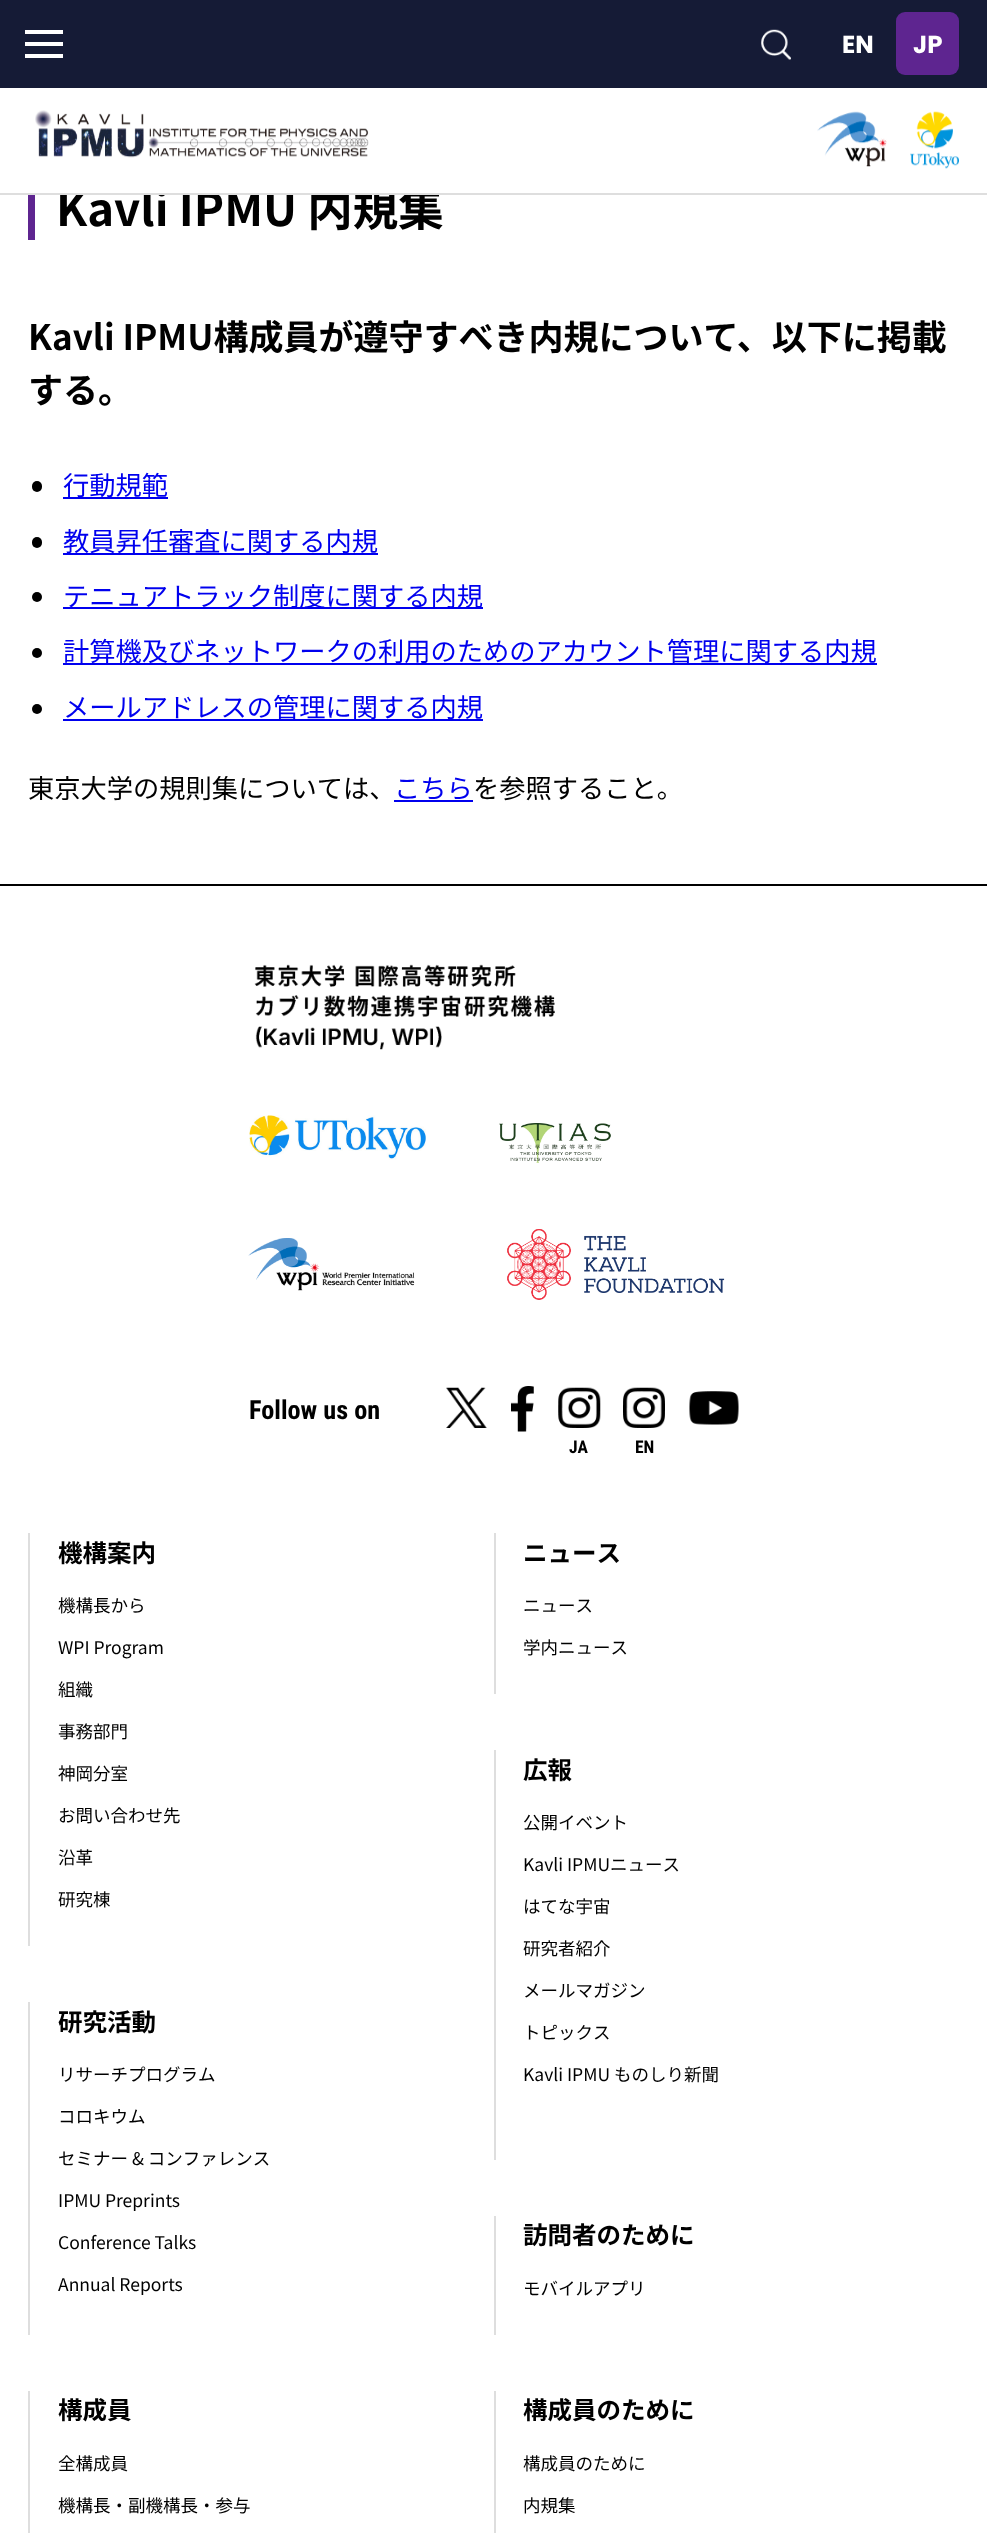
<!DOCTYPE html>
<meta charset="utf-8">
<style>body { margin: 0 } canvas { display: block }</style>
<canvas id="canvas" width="987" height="2533"></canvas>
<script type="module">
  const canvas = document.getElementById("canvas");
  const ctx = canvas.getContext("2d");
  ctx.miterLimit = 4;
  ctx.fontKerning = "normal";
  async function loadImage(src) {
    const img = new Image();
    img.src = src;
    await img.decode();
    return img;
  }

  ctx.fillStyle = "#ffffff";
  ctx.fillRect(0, 0, 987, 2533);
  ctx.font = "bold 45.5px Noto Sans JP";
  ctx.fillStyle = "#000000";
  ctx.fillText("Kavli IPMU 内規集", 56, 226);
  ctx.fillStyle = "#ffffff";
  ctx.fillRect(60, 187, 380, 6);
  ctx.fillStyle = "#dedede";
  ctx.fillRect(0, 193, 987, 2);
  ctx.fillStyle = "#151b36";
  ctx.fillRect(0, 0, 987, 88);
  ctx.fillStyle = "#ffffff";
  ctx.fillRect(25, 42, 38, 4);
  ctx.fillRect(25, 30, 38, 4);
  ctx.fillRect(25, 54, 38, 4);
  ctx.drawImage(await loadImage("img1.png"), 35, 110, 334, 48);
  ctx.drawImage(await loadImage("img2.png"), 817, 111, 70, 56);
  ctx.drawImage(await loadImage("img3.png"), 910, 111, 49, 58);
  ctx.drawImage(await loadImage("img4.png"), 761, 29, 30, 31);
  ctx.font = "bold 24.5px Poppins";
  ctx.fillText("EN", 842, 53);
  ctx.fillStyle = "#5e2590";
  ctx.beginPath();
  ctx.roundRect(896, 12, 63, 63, 9);
  ctx.fill();
  ctx.fillStyle = "#ffffff";
  ctx.fillText("JP", 913, 53);
  ctx.fillStyle = "#5e2590";
  ctx.fillRect(28, 195, 7, 45);
  ctx.font = "bold 35px Noto Sans JP";
  ctx.fillStyle = "#000000";
  ctx.fillText("Kavli IPMU構成員が遵守すべき内規について、以下に掲載", 28, 350);
  ctx.fillText("する。", 28, 403);
  ctx.beginPath();
  ctx.roundRect(32, 481, 10, 11, 5);
  ctx.fill();
  ctx.fillStyle = "#0000ee";
  ctx.fillRect(63, 497, 105, 2);
  ctx.font = "26.25px Noto Sans JP";
  ctx.fillText("行動規範", 63, 495);
  ctx.fillStyle = "#000000";
  ctx.beginPath();
  ctx.roundRect(32, 537, 10, 11, 5);
  ctx.fill();
  ctx.fillStyle = "#0000ee";
  ctx.fillRect(63, 553, 315, 2);
  ctx.fillText("教員昇任審査に関する内規", 63, 551);
  ctx.fillStyle = "#000000";
  ctx.beginPath();
  ctx.arc(37, 597, 5, 0, Math.PI * 2);
  ctx.fill();
  ctx.fillStyle = "#0000ee";
  ctx.fillRect(63, 607, 420, 2);
  ctx.fillText("テニュアトラック制度に関する内規", 63, 606);
  ctx.fillStyle = "#000000";
  ctx.beginPath();
  ctx.arc(37, 653, 5, 0, Math.PI * 2);
  ctx.fill();
  ctx.fillStyle = "#0000ee";
  ctx.fillRect(63, 663, 814, 2);
  ctx.fillText("計算機及びネットワークの利用のためのアカウント管理に関する内規", 63, 661);
  ctx.fillStyle = "#000000";
  ctx.beginPath();
  ctx.arc(37, 709, 5, 0, Math.PI * 2);
  ctx.fill();
  ctx.fillStyle = "#0000ee";
  ctx.fillRect(63, 719, 420, 2);
  ctx.fillText("メールアドレスの管理に関する内規", 63, 717);
  ctx.fillStyle = "#000000";
  ctx.fillText("東京大学の規則集については、", 28, 798);
  ctx.fillStyle = "#0000ee";
  ctx.fillText("こちら", 394, 798);
  ctx.fillRect(394, 800, 79, 2);
  ctx.fillStyle = "#000000";
  ctx.fillText("を参照すること。", 473, 798);
  ctx.fillRect(0, 884, 987, 2);
  ctx.drawImage(await loadImage("img5.png"), 254, 964, 301, 86);
  ctx.drawImage(await loadImage("img6.png"), 249, 1115, 177, 45);
  ctx.drawImage(await loadImage("img7.png"), 499, 1123, 112, 40);
  ctx.drawImage(await loadImage("img8.png"), 248, 1238, 167, 53);
  ctx.drawImage(await loadImage("img9.png"), 507, 1229, 218, 71);
  ctx.font = "bold 26.25px Roboto Condensed";
  ctx.fillText("Follow us on", 249, 1419);
  ctx.drawImage(await loadImage("img10.png"), 446, 1387, 41, 41);
  ctx.drawImage(await loadImage("img11.png"), 511, 1386, 23, 46);
  ctx.drawImage(await loadImage("img12.png"), 689, 1391, 50, 34);
  ctx.drawImage(await loadImage("img13.png"), 558, 1387, 43, 41);
  ctx.font = "bold 17.5px Roboto Condensed";
  ctx.fillText("JA", 569, 1453);
  ctx.drawImage(await loadImage("img14.png"), 623, 1387, 42, 41);
  ctx.fillText("EN", 635, 1453);
  ctx.fillStyle = "#dedede";
  ctx.fillRect(28, 1533, 2, 413);
  ctx.font = "bold 24.5px Noto Sans JP";
  ctx.fillStyle = "#000000";
  ctx.fillText("機構案内", 58, 1562);
  ctx.font = "17.5px Noto Sans JP";
  ctx.fillText("機構長から", 58, 1612);
  ctx.fillText("WPI Program", 58, 1654);
  ctx.fillText("組織", 58, 1696);
  ctx.fillText("事務部門", 58, 1738);
  ctx.fillText("神岡分室", 58, 1780);
  ctx.fillText("お問い合わせ先", 58, 1822);
  ctx.fillText("沿革", 58, 1864);
  ctx.fillText("研究棟", 58, 1906);
  ctx.fillStyle = "#dedede";
  ctx.fillRect(494, 1533, 2, 161);
  ctx.font = "bold 24.5px Noto Sans JP";
  ctx.fillStyle = "#000000";
  ctx.fillText("ニュース", 523, 1562);
  ctx.font = "17.5px Noto Sans JP";
  ctx.fillText("ニュース", 523, 1612);
  ctx.fillText("学内ニュース", 523, 1654);
  ctx.fillStyle = "#dedede";
  ctx.fillRect(494, 1750, 2, 410);
  ctx.font = "bold 24.5px Noto Sans JP";
  ctx.fillStyle = "#000000";
  ctx.fillText("広報", 523, 1779);
  ctx.font = "17.5px Noto Sans JP";
  ctx.fillText("公開イベント", 523, 1829);
  ctx.fillText("Kavli IPMUニュース", 523, 1871);
  ctx.fillText("はてな宇宙", 523, 1913);
  ctx.fillText("研究者紹介", 523, 1955);
  ctx.fillText("メールマガジン", 523, 1997);
  ctx.fillText("トピックス", 523, 2039);
  ctx.fillText("Kavli IPMU ものしり新聞", 523, 2081);
  ctx.fillStyle = "#dedede";
  ctx.fillRect(28, 2002, 2, 333);
  ctx.font = "bold 24.5px Noto Sans JP";
  ctx.fillStyle = "#000000";
  ctx.fillText("研究活動", 58, 2031);
  ctx.font = "17.5px Noto Sans JP";
  ctx.fillText("リサーチプログラム", 58, 2081);
  ctx.fillText("コロキウム", 58, 2123);
  ctx.fillText("セミナー & コンファレンス", 58, 2165);
  ctx.fillText("IPMU Preprints", 58, 2207);
  ctx.fillText("Conference Talks", 58, 2249);
  ctx.fillText("Annual Reports", 58, 2291);
  ctx.fillStyle = "#dedede";
  ctx.fillRect(494, 2216, 2, 119);
  ctx.font = "bold 24.5px Noto Sans JP";
  ctx.fillStyle = "#000000";
  ctx.fillText("訪問者のために", 523, 2244);
  ctx.font = "17.5px Noto Sans JP";
  ctx.fillText("モバイルアプリ", 523, 2295);
  ctx.fillStyle = "#dedede";
  ctx.fillRect(28, 2391, 2, 142);
  ctx.font = "bold 24.5px Noto Sans JP";
  ctx.fillStyle = "#000000";
  ctx.fillText("構成員", 58, 2419);
  ctx.font = "17.5px Noto Sans JP";
  ctx.fillText("全構成員", 58, 2470);
  ctx.fillText("機構長・副機構長・参与", 58, 2512);
  ctx.fillStyle = "#dedede";
  ctx.fillRect(494, 2391, 2, 142);
  ctx.font = "bold 24.5px Noto Sans JP";
  ctx.fillStyle = "#000000";
  ctx.fillText("構成員のために", 523, 2419);
  ctx.font = "17.5px Noto Sans JP";
  ctx.fillText("構成員のために", 523, 2470);
  ctx.fillText("内規集", 523, 2512);
</script>
